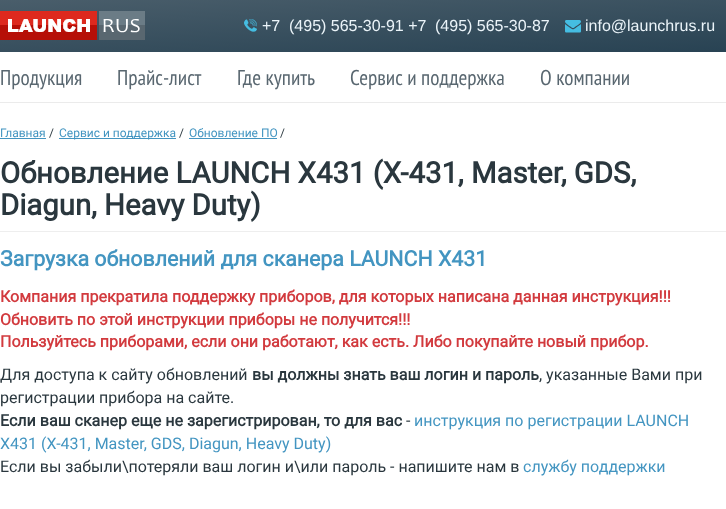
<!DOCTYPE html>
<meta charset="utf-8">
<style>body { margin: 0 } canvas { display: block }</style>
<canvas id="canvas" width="726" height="509"></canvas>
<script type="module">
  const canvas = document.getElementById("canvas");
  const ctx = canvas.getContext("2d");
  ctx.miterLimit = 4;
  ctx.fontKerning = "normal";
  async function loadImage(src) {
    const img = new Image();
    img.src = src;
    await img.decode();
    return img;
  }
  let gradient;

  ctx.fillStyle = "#ffffff";
  ctx.fillRect(0, 0, 726, 509);
  ctx.fillStyle = "#ebebeb";
  ctx.fillRect(0, 102, 726, 1);
  gradient = ctx.createLinearGradient(427, -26, 433, 78);
  gradient.addColorStop(0, "#4a5e6b");
  gradient.addColorStop(1, "#254051");
  ctx.fillStyle = gradient;
  ctx.fillRect(0, 0, 726, 52);
  ctx.drawImage(await loadImage("img1.png"), 0, 11, 145, 29);
  ctx.drawImage(await loadImage("img2.png"), 244, 19, 13, 13);
  ctx.font = "16px Liberation Sans";
  ctx.fillStyle = "#ebf4f9";
  ctx.fillText("+7", 262, 31);
  ctx.fillText("(495) 565-30-91 +7", 289, 31);
  ctx.fillText("(495) 565-30-87", 435, 31);
  ctx.drawImage(await loadImage("img3.png"), 565, 20, 16, 13);
  ctx.fillText("info@launchrus.ru", 585, 31);
  ctx.font = "21.3px PT Sans Narrow";
  ctx.fillStyle = "#596770";
  ctx.fillText("Продукция", 0, 85);
  ctx.fillText("Прайс-лист", 117, 85);
  ctx.fillText("Где купить", 237, 85);
  ctx.fillText("Сервис и поддержка", 350, 85);
  ctx.fillText("О компании", 540, 85);
  ctx.font = "12px Roboto";
  ctx.fillStyle = "#4395c1";
  ctx.fillText("Главная", 0, 137);
  ctx.fillRect(0, 138, 46, 1);
  ctx.fillStyle = "#2a373e";
  ctx.fillText("/", 49, 137);
  ctx.fillStyle = "#4395c1";
  ctx.fillRect(59, 138, 117, 1);
  ctx.fillText("Сервис и поддержка", 59, 137);
  ctx.fillStyle = "#2a373e";
  ctx.fillText("/", 179, 137);
  ctx.fillStyle = "#4395c1";
  ctx.fillText("Обновление ПО", 189, 137);
  ctx.fillRect(189, 138, 88, 1);
  ctx.fillStyle = "#2a373e";
  ctx.fillText("/", 280, 137);
  ctx.font = "bold 29.3px Roboto";
  ctx.fillText("Обновление LAUNCH X431 (X-431, Master, GDS,", 0, 183);
  ctx.fillText("Diagun, Heavy Duty)", 0, 215);
  ctx.fillStyle = "#eeeeee";
  ctx.fillRect(0, 231, 726, 1);
  ctx.font = "bold 21.3px Roboto";
  ctx.fillStyle = "#4395c1";
  ctx.fillText("Загрузка обновлений для сканера LAUNCH X431", 0, 266);
  ctx.font = "bold 16px Roboto";
  ctx.fillStyle = "#d23a3e";
  ctx.fillText("Компания прекратила поддержку приборов, для которых написана данная инструкция!!!", 0, 302);
  ctx.fillText("Обновить по этой инструкции приборы не получится!!!", 0, 325);
  ctx.fillText("Пользуйтесь приборами, если они работают, как есть. Либо покупайте новый прибор.", 0, 347);
  ctx.font = "16px Roboto";
  ctx.fillStyle = "#2a373e";
  ctx.fillText("Для доступа к сайту обновлений", 0, 380);
  ctx.font = "bold 16px Roboto";
  ctx.fillText("вы должны знать ваш логин и пароль", 252, 380);
  ctx.font = "16px Roboto";
  ctx.fillText(", указанные Вами при", 539, 380);
  ctx.fillText("регистрации прибора на сайте.", 0, 403);
  ctx.font = "bold 16px Roboto";
  ctx.fillText("Если ваш сканер еще не зарегистрирован, то для вас", 0, 426);
  ctx.font = "16px Roboto";
  ctx.fillText("-", 406, 426);
  ctx.fillStyle = "#4395c1";
  ctx.fillText("инструкция по регистрации LAUNCH", 414, 426);
  ctx.fillText("X431 (X-431, Master, GDS, Diagun, Heavy Duty)", 0, 449);
  ctx.fillStyle = "#2a373e";
  ctx.fillText("Если вы забыли\\потеряли ваш логин и\\или пароль - напишите нам в", 0, 472);
  ctx.fillStyle = "#4395c1";
  ctx.fillText("службу поддержки", 523, 472);
</script>
